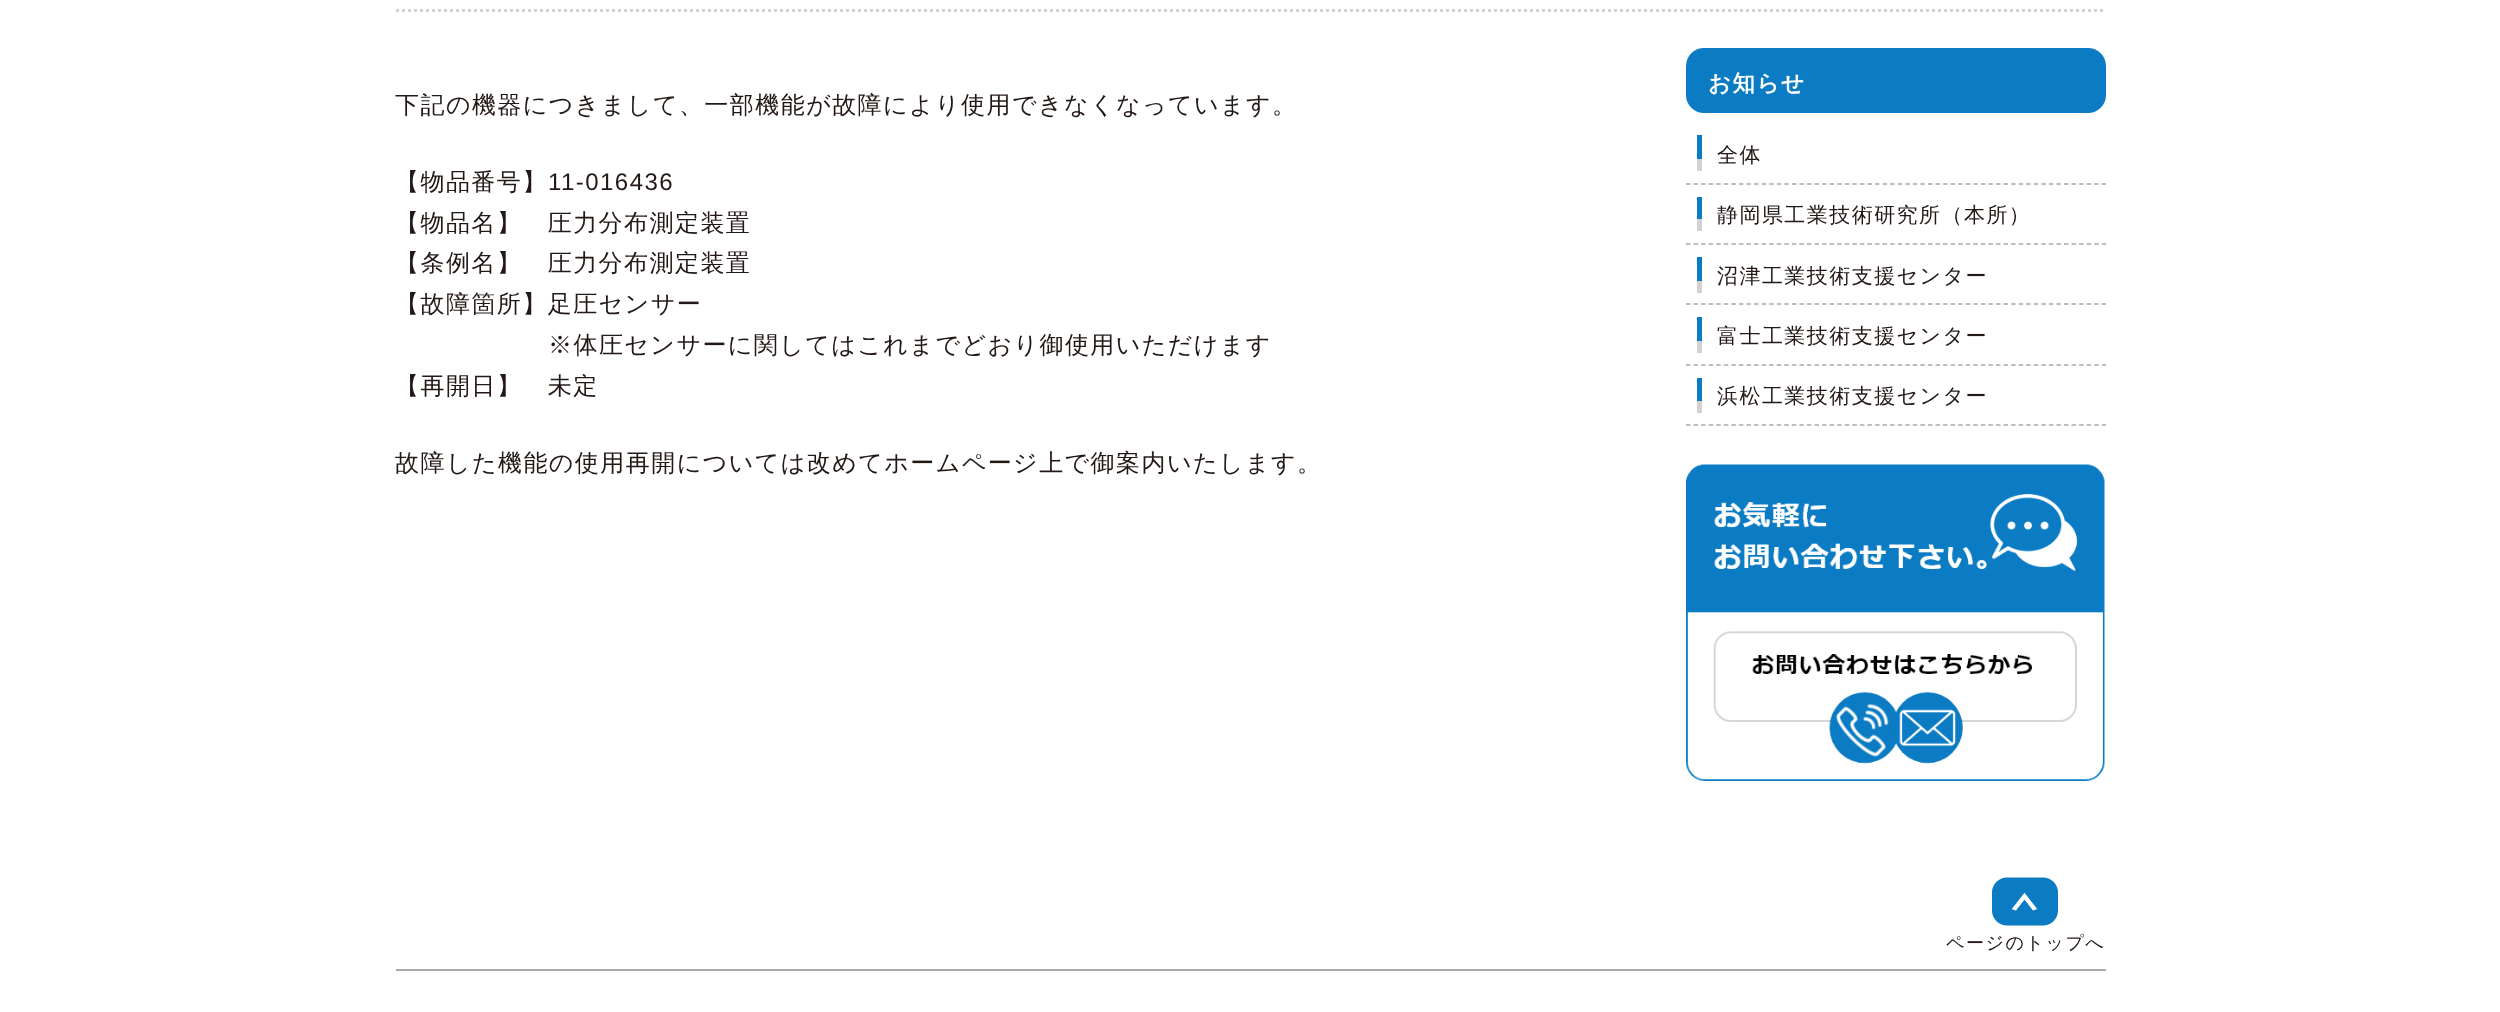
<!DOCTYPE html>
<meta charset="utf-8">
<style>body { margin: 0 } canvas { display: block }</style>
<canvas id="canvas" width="2500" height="1012"></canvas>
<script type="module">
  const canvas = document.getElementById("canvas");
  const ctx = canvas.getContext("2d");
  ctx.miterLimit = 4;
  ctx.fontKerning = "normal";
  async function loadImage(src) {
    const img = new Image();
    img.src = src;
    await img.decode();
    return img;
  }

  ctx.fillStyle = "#ffffff";
  ctx.fillRect(0, 0, 2500, 1012);
  ctx.beginPath();
  ctx.moveTo(396, 10.5);
  ctx.lineTo(2106, 10.5);
  ctx.strokeStyle = "#d2d2d2";
  ctx.lineWidth = 3;
  ctx.setLineDash([3, 3]);
  ctx.stroke();
  ctx.letterSpacing = "1.45px";
  ctx.font = "500 24px WenQuanYi Zen Hei";
  ctx.fillStyle = "#221815";
  ctx.fillText("下記の機器につきまして、一部機能が故障により使用できなくなっています。", 395, 113);
  ctx.fillText("【物品番号】", 395, 190);
  ctx.font = "24px Liberation Sans";
  ctx.fillText("11-016436", 548, 190);
  ctx.font = "500 24px WenQuanYi Zen Hei";
  ctx.fillText("【物品名】　圧力分布測定装置", 395, 231);
  ctx.fillText("【条例名】　圧力分布測定装置", 395, 271);
  ctx.fillText("【故障箇所】足圧センサー", 395, 312);
  ctx.fillText("※体圧センサーに関してはこれまでどおり御使用いただけます", 548, 353);
  ctx.fillText("【再開日】　未定", 395, 394);
  ctx.fillText("故障した機能の使用再開については改めてホームページ上で御案内いたします。", 395, 471);
  ctx.fillStyle = "#0b7cc3";
  ctx.beginPath();
  ctx.roundRect(1686, 48, 420, 65, 18);
  ctx.fill();
  ctx.font = "bold 22.5px WenQuanYi Zen Hei";
  ctx.fillStyle = "#ffffff";
  ctx.fillText("お知らせ", 1708, 91);
  ctx.beginPath();
  ctx.moveTo(1686, 184);
  ctx.lineTo(2106, 184);
  ctx.strokeStyle = "#a9a9a9";
  ctx.lineWidth = 1.5;
  ctx.setLineDash([4.5, 3.06]);
  ctx.stroke();
  ctx.fillStyle = "#0b7cc3";
  ctx.fillRect(1697, 135, 5, 24);
  ctx.font = "500 21px WenQuanYi Zen Hei";
  ctx.fillStyle = "#221815";
  ctx.fillText("全体", 1717, 162);
  ctx.fillStyle = "#d2d2d2";
  ctx.fillRect(1697, 159, 5, 12);
  ctx.beginPath();
  ctx.moveTo(1686, 244);
  ctx.lineTo(2106, 244);
  ctx.stroke();
  ctx.fillStyle = "#0b7cc3";
  ctx.fillRect(1697, 197, 5, 22);
  ctx.fillStyle = "#221815";
  ctx.fillText("静岡県工業技術研究所（本所）", 1717, 222);
  ctx.fillStyle = "#d2d2d2";
  ctx.fillRect(1697, 219, 5, 12);
  ctx.beginPath();
  ctx.moveTo(1686, 304);
  ctx.lineTo(2106, 304);
  ctx.stroke();
  ctx.fillStyle = "#0b7cc3";
  ctx.fillRect(1697, 257, 5, 24);
  ctx.fillStyle = "#221815";
  ctx.fillText("沼津工業技術支援センター", 1717, 283);
  ctx.fillStyle = "#d2d2d2";
  ctx.fillRect(1697, 281, 5, 12);
  ctx.beginPath();
  ctx.moveTo(1686, 365);
  ctx.lineTo(2106, 365);
  ctx.stroke();
  ctx.fillStyle = "#0b7cc3";
  ctx.fillRect(1697, 317, 5, 24);
  ctx.fillStyle = "#221815";
  ctx.fillText("富士工業技術支援センター", 1717, 343);
  ctx.fillStyle = "#d2d2d2";
  ctx.fillRect(1697, 341, 5, 12);
  ctx.beginPath();
  ctx.moveTo(1686, 425);
  ctx.lineTo(2106, 425);
  ctx.stroke();
  ctx.fillStyle = "#0b7cc3";
  ctx.fillRect(1697, 378, 5, 23);
  ctx.fillStyle = "#221815";
  ctx.fillText("浜松工業技術支援センター", 1717, 403);
  ctx.fillStyle = "#d2d2d2";
  ctx.fillRect(1697, 401, 5, 12);
  ctx.drawImage(await loadImage("img1.png"), 1686, 464, 419, 317);
  ctx.drawImage(await loadImage("img2.png"), 1992, 877, 66, 49);
  ctx.font = "500 18.1px WenQuanYi Zen Hei";
  ctx.fillStyle = "#221815";
  ctx.fillText("ページのトップへ", 1946, 949);
  ctx.fillStyle = "#a9a9a9";
  ctx.fillRect(396, 969, 1710, 2);
</script>
